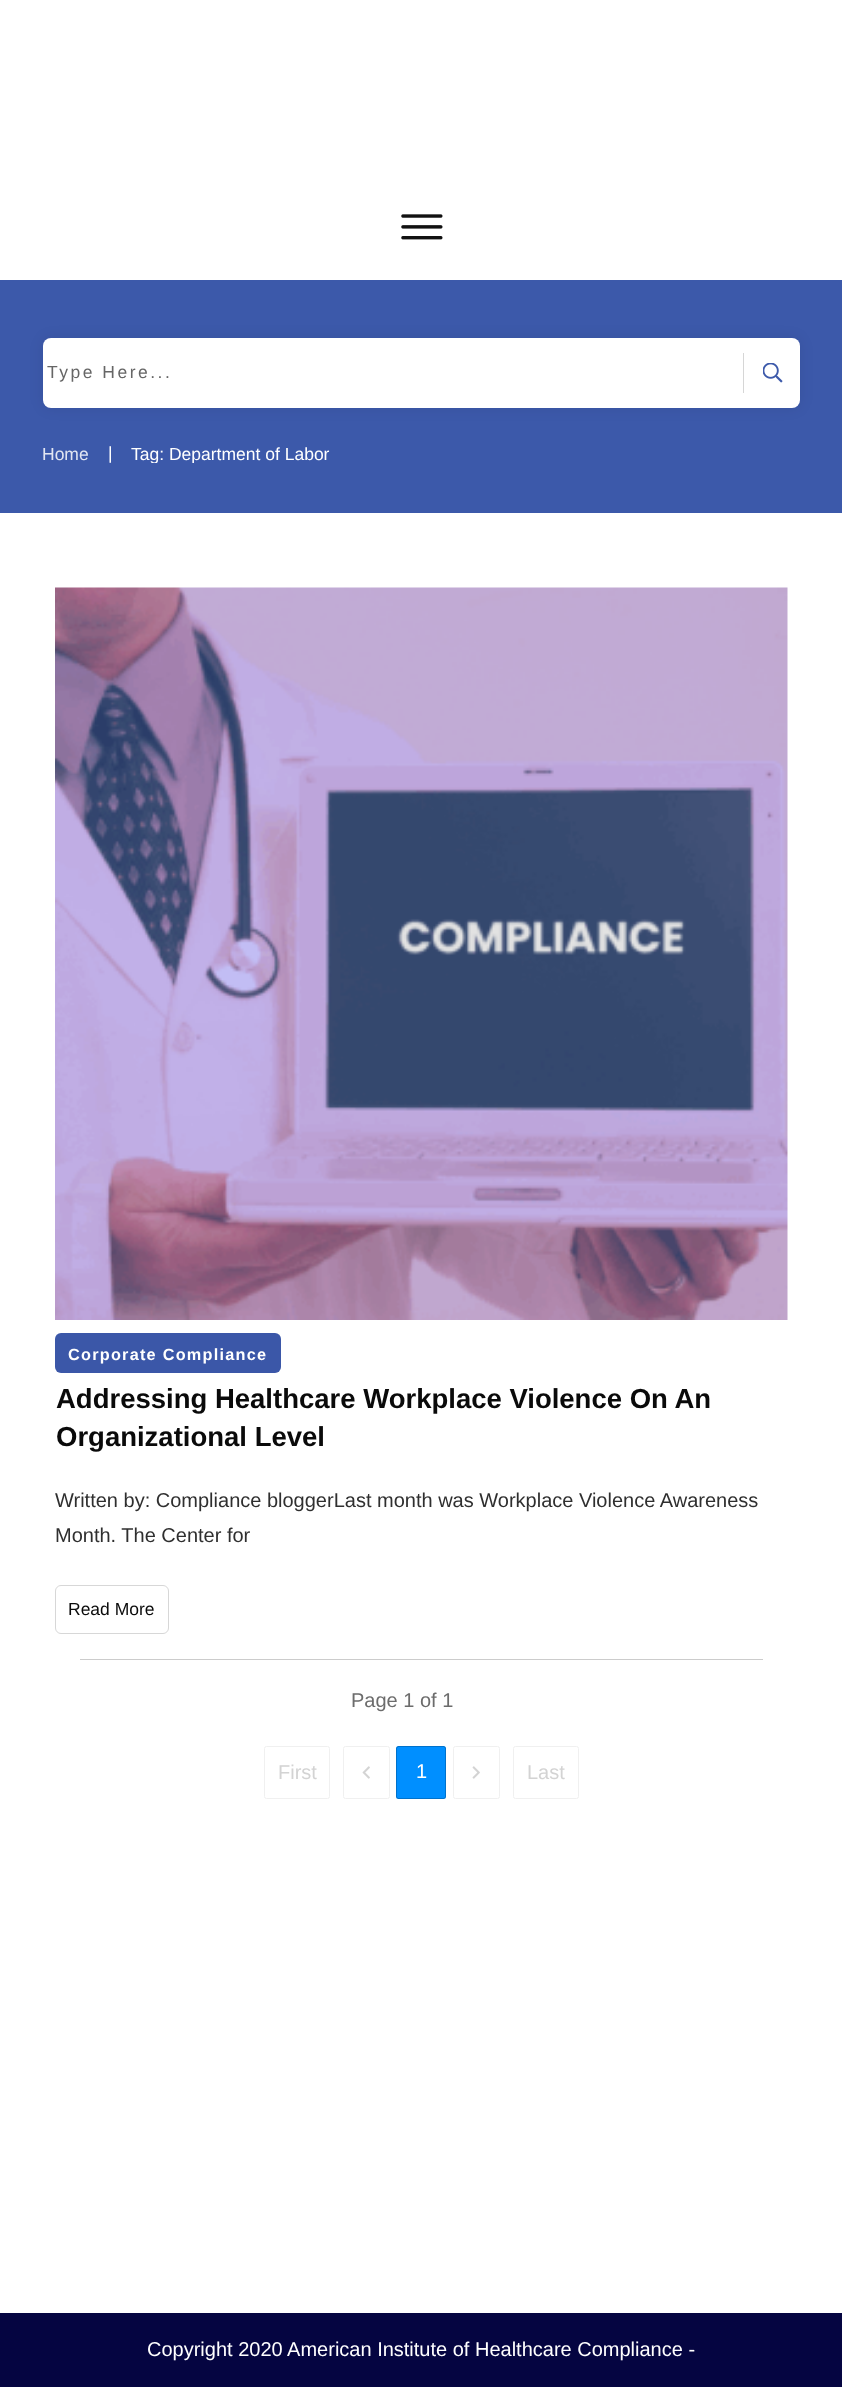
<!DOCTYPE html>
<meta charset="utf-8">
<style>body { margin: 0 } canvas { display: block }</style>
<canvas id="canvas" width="842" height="2387"></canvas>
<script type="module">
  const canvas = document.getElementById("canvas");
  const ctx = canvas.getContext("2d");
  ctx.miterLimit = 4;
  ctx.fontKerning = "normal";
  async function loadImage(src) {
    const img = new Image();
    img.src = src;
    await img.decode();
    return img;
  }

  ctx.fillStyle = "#ffffff";
  ctx.fillRect(0, 0, 842, 2387);
  ctx.drawImage(await loadImage("img1.png"), 401, 214, 42, 26);
  ctx.fillStyle = "#3c59aa";
  ctx.fillRect(0, 280, 842, 233);
  ctx.fillStyle = "rgba(0, 0, 0, 0.08)";
  ctx.filter = "blur(7px)";
  ctx.beginPath();
  ctx.roundRect(43, 338, 757, 70, 8);
  ctx.fill();
  ctx.filter = "none";
  ctx.fillStyle = "#ffffff";
  ctx.beginPath();
  ctx.roundRect(43, 338, 757, 70, 8);
  ctx.fill();
  ctx.letterSpacing = "2.5px";
  ctx.font = "17.5px Liberation Sans";
  ctx.fillStyle = "#666666";
  ctx.fillText("Type Here...", 47, 378);
  ctx.fillStyle = "#d6d6d6";
  ctx.fillRect(743, 353, 1, 40);
  ctx.drawImage(await loadImage("img2.png"), 763, 363, 20, 20);
  ctx.letterSpacing = "0px";
  ctx.fillStyle = "#e2e6f2";
  ctx.fillText("Home", 42, 460);
  ctx.fillStyle = "#ffffff";
  ctx.fillText("|", 108, 459);
  ctx.save();
  ctx.beginPath();
  ctx.rect(131, 445, 199, 18);
  ctx.clip();
  ctx.fillText("Tag: Department of Labor", 131, 460);
  ctx.restore();
  ctx.drawImage(await loadImage("img3.png"), 55, 587, 733, 733);
  ctx.fillStyle = "#3b57a8";
  ctx.beginPath();
  ctx.roundRect(55, 1333, 226, 40, 6);
  ctx.fill();
  ctx.letterSpacing = "1.25px";
  ctx.font = "bold 16.25px Liberation Sans";
  ctx.fillStyle = "#ffffff";
  ctx.fillText("Corporate Compliance", 68, 1360);
  ctx.letterSpacing = "0px";
  ctx.font = "bold 27.5px Liberation Sans";
  ctx.fillStyle = "#0a0a0a";
  ctx.fillText("Addressing Healthcare Workplace Violence On An", 56, 1408);
  ctx.fillText("Organizational Level", 56, 1446);
  ctx.font = "20px Liberation Sans";
  ctx.fillStyle = "#2f2f2f";
  ctx.fillText("Written by: Compliance bloggerLast month was Workplace Violence Awareness", 55, 1507);
  ctx.fillText("Month. The Center for", 55, 1542);
  ctx.beginPath();
  ctx.roundRect(55.5, 1585.5, 113, 48, 5.5);
  ctx.strokeStyle = "#d7d7d7";
  ctx.stroke();
  ctx.font = "17.5px Liberation Sans";
  ctx.fillStyle = "#0a0a0a";
  ctx.fillText("Read More", 68, 1615);
  ctx.fillStyle = "#cccccc";
  ctx.fillRect(80, 1659, 683, 1);
  ctx.font = "20px Liberation Sans";
  ctx.fillStyle = "#6c6c6c";
  ctx.fillText("Page 1 of 1", 351, 1707);
  ctx.beginPath();
  ctx.roundRect(264.5, 1746.5, 65, 52, 2);
  ctx.strokeStyle = "#f0f0f0";
  ctx.stroke();
  ctx.fillStyle = "#d3d3d3";
  ctx.fillText("First", 278, 1779);
  ctx.beginPath();
  ctx.roundRect(343.5, 1746.5, 46, 52, 2);
  ctx.stroke();
  ctx.drawImage(await loadImage("img4.png"), 362, 1766, 8, 13);
  ctx.fillStyle = "#008fff";
  ctx.beginPath();
  ctx.roundRect(396, 1746, 50, 53, 2.5);
  ctx.fill();
  ctx.beginPath();
  ctx.roundRect(396.5, 1746.5, 49, 52, 2);
  ctx.strokeStyle = "rgba(0, 0, 0, 0.2)";
  ctx.stroke();
  ctx.fillStyle = "#ffffff";
  ctx.fillText("1", 416, 1778);
  ctx.beginPath();
  ctx.roundRect(453.5, 1746.5, 46, 52, 2);
  ctx.strokeStyle = "#f0f0f0";
  ctx.stroke();
  ctx.drawImage(await loadImage("img5.png"), 472, 1766, 8, 13);
  ctx.beginPath();
  ctx.roundRect(513.5, 1746.5, 65, 52, 2);
  ctx.stroke();
  ctx.fillStyle = "#d3d3d3";
  ctx.fillText("Last", 527, 1779);
  ctx.fillStyle = "#050541";
  ctx.fillRect(0, 2313, 842, 74);
  ctx.fillStyle = "#ffffff";
  ctx.fillText("Copyright 2020 American Institute of Healthcare Compliance -", 147, 2356);
</script>
